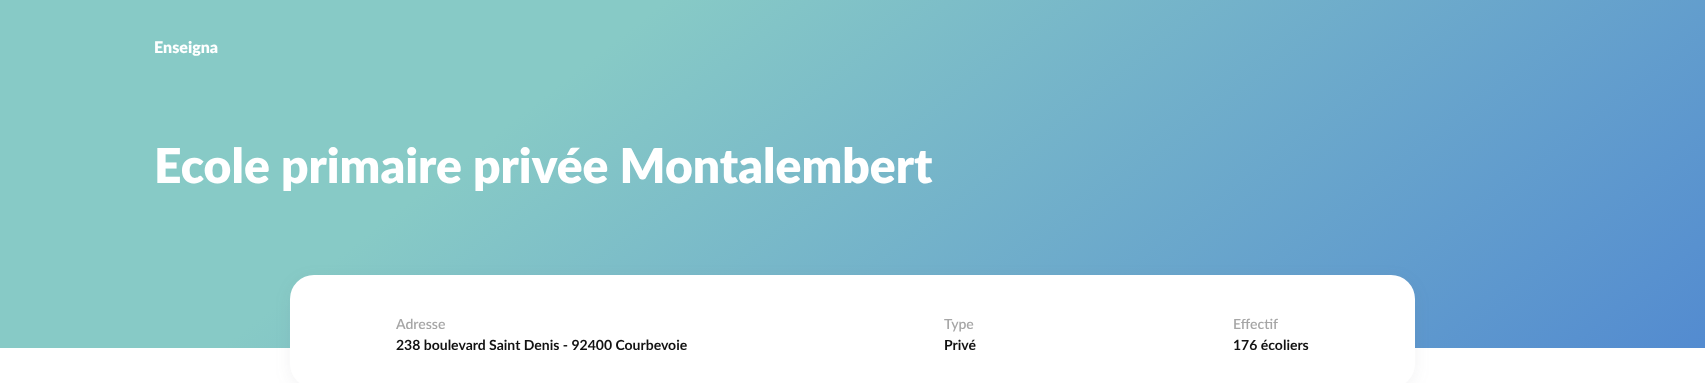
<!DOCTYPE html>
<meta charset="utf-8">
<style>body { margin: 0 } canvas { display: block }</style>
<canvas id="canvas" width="1705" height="383"></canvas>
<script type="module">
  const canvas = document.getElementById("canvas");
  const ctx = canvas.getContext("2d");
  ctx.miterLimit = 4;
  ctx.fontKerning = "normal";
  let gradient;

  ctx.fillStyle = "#ffffff";
  ctx.fillRect(0, 0, 1705, 383);
  gradient = ctx.createLinearGradient(445, -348, 1260, 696);
  gradient.addColorStop(0.31, "#87cac6");
  gradient.addColorStop(1, "#538bd0");
  ctx.fillStyle = gradient;
  ctx.fillRect(0, 0, 1705, 348);
  ctx.font = "900 16px Lato";
  ctx.fillStyle = "#ffffff";
  ctx.fillText("Enseigna", 154, 53);
  ctx.font = "900 48px Lato";
  ctx.fillText("Ecole primaire privée Montalembert", 154, 183);
  ctx.fillStyle = "rgba(96, 97, 112, 0.08)";
  ctx.filter = "blur(8px)";
  ctx.beginPath();
  ctx.roundRect(290, 279, 1125, 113, 24);
  ctx.fill();
  ctx.filter = "none";
  ctx.fillStyle = "#ffffff";
  ctx.beginPath();
  ctx.roundRect(290, 275, 1125, 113, 24);
  ctx.fill();
  ctx.font = "600 14px Lato";
  ctx.fillStyle = "#a6a6a6";
  ctx.fillText("Adresse", 396, 329);
  ctx.font = "bold 14px Lato";
  ctx.fillStyle = "#121212";
  ctx.fillText("238 boulevard Saint Denis - 92400 Courbevoie", 396, 350);
  ctx.font = "600 14px Lato";
  ctx.fillStyle = "#a6a6a6";
  ctx.fillText("Type", 944, 329);
  ctx.font = "bold 14px Lato";
  ctx.fillStyle = "#121212";
  ctx.fillText("Privé", 944, 350);
  ctx.font = "600 14px Lato";
  ctx.fillStyle = "#a6a6a6";
  ctx.fillText("Effectif", 1233, 329);
  ctx.font = "bold 14px Lato";
  ctx.fillStyle = "#121212";
  ctx.fillText("176 écoliers", 1233, 350);
</script>
